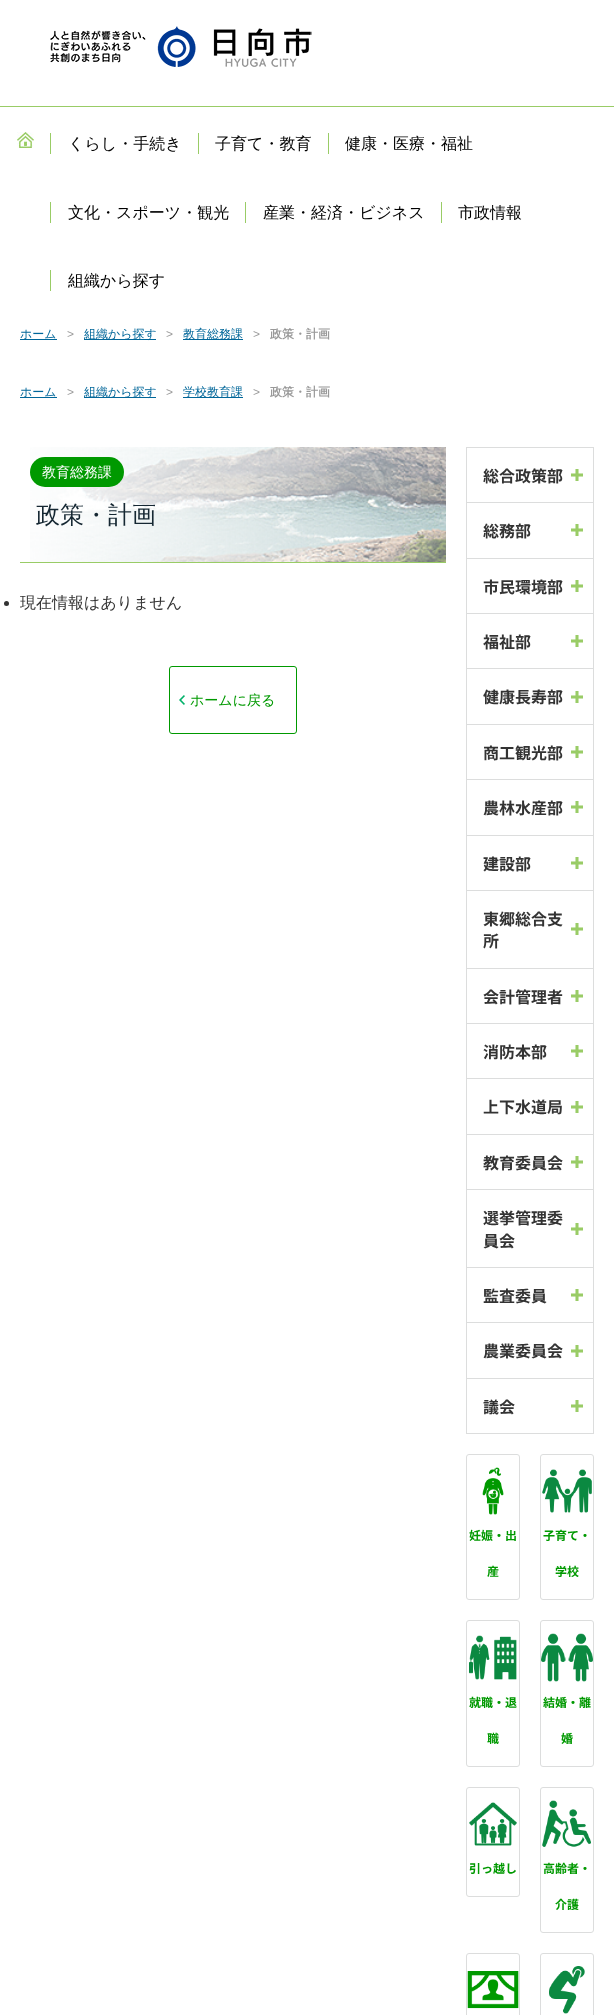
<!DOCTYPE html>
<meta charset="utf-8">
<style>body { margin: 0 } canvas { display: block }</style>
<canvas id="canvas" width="614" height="2015"></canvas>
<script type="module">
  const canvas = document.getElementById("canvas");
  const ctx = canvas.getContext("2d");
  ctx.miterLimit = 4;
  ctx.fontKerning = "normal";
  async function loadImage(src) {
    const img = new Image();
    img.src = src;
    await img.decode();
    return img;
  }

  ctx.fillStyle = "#ffffff";
  ctx.fillRect(0, 0, 614, 2015);
  ctx.fillStyle = "#99cc66";
  ctx.fillRect(0, 106, 614, 1);
  ctx.drawImage(await loadImage("img1.png"), 50, 26, 262, 41);
  ctx.drawImage(await loadImage("img2.png"), 17, 132, 17, 16);
  ctx.font = "500 16px WenQuanYi Zen Hei";
  ctx.fillStyle = "#000000";
  ctx.fillText("くらし・手続き", 68, 149);
  ctx.fillStyle = "#99cc66";
  ctx.fillRect(50, 133, 1, 21);
  ctx.fillStyle = "#000000";
  ctx.fillText("子育て・教育", 215, 149);
  ctx.fillStyle = "#99cc66";
  ctx.fillRect(198, 133, 1, 21);
  ctx.fillStyle = "#000000";
  ctx.fillText("健康・医療・福祉", 345, 149);
  ctx.fillStyle = "#99cc66";
  ctx.fillRect(328, 133, 1, 21);
  ctx.fillStyle = "#000000";
  ctx.fillText("文化・スポーツ・観光", 68, 218);
  ctx.fillStyle = "#99cc66";
  ctx.fillRect(50, 202, 1, 21);
  ctx.fillStyle = "#000000";
  ctx.fillText("産業・経済・ビジネス", 263, 218);
  ctx.fillStyle = "#99cc66";
  ctx.fillRect(245, 202, 1, 21);
  ctx.fillStyle = "#000000";
  ctx.fillText("市政情報", 458, 218);
  ctx.fillStyle = "#99cc66";
  ctx.fillRect(441, 202, 1, 21);
  ctx.fillStyle = "#000000";
  ctx.fillText("組織から探す", 68, 286);
  ctx.fillStyle = "#99cc66";
  ctx.fillRect(50, 270, 1, 21);
  ctx.fillStyle = "#006699";
  ctx.fillRect(20, 339, 37, 1);
  ctx.font = "500 12px WenQuanYi Zen Hei";
  ctx.fillText("ホーム", 20, 338);
  ctx.font = "12px Liberation Sans";
  ctx.fillStyle = "#999999";
  ctx.fillText(">", 67, 338);
  ctx.fillStyle = "#006699";
  ctx.fillRect(84, 339, 72, 1);
  ctx.font = "500 12px WenQuanYi Zen Hei";
  ctx.fillText("組織から探す", 84, 338);
  ctx.font = "12px Liberation Sans";
  ctx.fillStyle = "#999999";
  ctx.fillText(">", 166, 338);
  ctx.fillStyle = "#006699";
  ctx.fillRect(183, 339, 60, 1);
  ctx.font = "500 12px WenQuanYi Zen Hei";
  ctx.fillText("教育総務課", 183, 338);
  ctx.font = "12px Liberation Sans";
  ctx.fillStyle = "#999999";
  ctx.fillText(">", 253, 338);
  ctx.font = "bold 12px WenQuanYi Zen Hei";
  ctx.fillText("政策・計画", 270, 338);
  ctx.fillStyle = "#006699";
  ctx.fillRect(20, 397, 37, 1);
  ctx.font = "500 12px WenQuanYi Zen Hei";
  ctx.fillText("ホーム", 20, 396);
  ctx.font = "12px Liberation Sans";
  ctx.fillStyle = "#999999";
  ctx.fillText(">", 67, 396);
  ctx.fillStyle = "#006699";
  ctx.fillRect(84, 397, 72, 1);
  ctx.font = "500 12px WenQuanYi Zen Hei";
  ctx.fillText("組織から探す", 84, 396);
  ctx.font = "12px Liberation Sans";
  ctx.fillStyle = "#999999";
  ctx.fillText(">", 166, 396);
  ctx.fillStyle = "#006699";
  ctx.fillRect(183, 397, 60, 1);
  ctx.font = "500 12px WenQuanYi Zen Hei";
  ctx.fillText("学校教育課", 183, 396);
  ctx.font = "12px Liberation Sans";
  ctx.fillStyle = "#999999";
  ctx.fillText(">", 253, 396);
  ctx.font = "bold 12px WenQuanYi Zen Hei";
  ctx.fillText("政策・計画", 270, 396);
  ctx.drawImage(await loadImage("img3.png"), 30, 447, 416, 115);
  ctx.fillStyle = "#99cc66";
  ctx.fillRect(20, 562, 426, 1);
  ctx.fillStyle = "#009900";
  ctx.beginPath();
  ctx.roundRect(30, 457, 94, 30, 15);
  ctx.fill();
  ctx.font = "500 14px WenQuanYi Zen Hei";
  ctx.fillStyle = "#ffffff";
  ctx.fillText("教育総務課", 42, 477);
  ctx.font = "500 24px WenQuanYi Zen Hei";
  ctx.fillStyle = "#152732";
  ctx.fillText("政策・計画", 36, 523);
  ctx.fillStyle = "#333333";
  ctx.beginPath();
  ctx.arc(6.5, 603.5, 2.5, 0, Math.PI * 2);
  ctx.fill();
  ctx.font = "500 16px WenQuanYi Zen Hei";
  ctx.fillText("現在情報はありません", 20, 608);
  ctx.beginPath();
  ctx.roundRect(169.5, 666.5, 127, 67, 2.5);
  ctx.strokeStyle = "#009900";
  ctx.stroke();
  ctx.drawImage(await loadImage("img4.png"), 179, 695, 6, 10);
  ctx.font = "500 14px WenQuanYi Zen Hei";
  ctx.fillStyle = "#009900";
  ctx.fillText("ホームに戻る", 190, 705);
  ctx.fillStyle = "#dcdddd";
  ctx.fillRect(466, 447, 128, 1);
  ctx.fillRect(593, 447, 1, 987);
  ctx.fillRect(466, 447, 1, 987);
  ctx.drawImage(await loadImage("img5.png"), 571, 469, 12, 12);
  ctx.fillRect(467, 502, 126, 1);
  ctx.font = "bold 16px Noto Sans JP";
  ctx.fillStyle = "#333333";
  ctx.fillText("総合政策部", 483, 482);
  ctx.drawImage(await loadImage("img5.png"), 571, 524, 12, 12);
  ctx.fillStyle = "#dcdddd";
  ctx.fillRect(467, 558, 126, 1);
  ctx.fillStyle = "#333333";
  ctx.fillText("総務部", 483, 537);
  ctx.drawImage(await loadImage("img5.png"), 571, 580, 12, 12);
  ctx.fillStyle = "#dcdddd";
  ctx.fillRect(467, 613, 126, 1);
  ctx.fillStyle = "#333333";
  ctx.fillText("市民環境部", 483, 593);
  ctx.drawImage(await loadImage("img5.png"), 571, 635, 12, 12);
  ctx.fillStyle = "#dcdddd";
  ctx.fillRect(467, 668, 126, 1);
  ctx.fillStyle = "#333333";
  ctx.fillText("福祉部", 483, 648);
  ctx.drawImage(await loadImage("img5.png"), 571, 691, 12, 12);
  ctx.fillStyle = "#dcdddd";
  ctx.fillRect(467, 724, 126, 1);
  ctx.fillStyle = "#333333";
  ctx.fillText("健康長寿部", 483, 703);
  ctx.drawImage(await loadImage("img5.png"), 571, 746, 12, 12);
  ctx.fillStyle = "#dcdddd";
  ctx.fillRect(467, 779, 126, 1);
  ctx.fillStyle = "#333333";
  ctx.fillText("商工観光部", 483, 759);
  ctx.drawImage(await loadImage("img5.png"), 571, 801, 12, 12);
  ctx.fillStyle = "#dcdddd";
  ctx.fillRect(467, 835, 126, 1);
  ctx.fillStyle = "#333333";
  ctx.fillText("農林水産部", 483, 814);
  ctx.drawImage(await loadImage("img5.png"), 571, 857, 12, 12);
  ctx.fillStyle = "#dcdddd";
  ctx.fillRect(467, 890, 126, 1);
  ctx.fillStyle = "#333333";
  ctx.fillText("建設部", 483, 870);
  ctx.drawImage(await loadImage("img5.png"), 571, 923, 12, 12);
  ctx.fillStyle = "#dcdddd";
  ctx.fillRect(467, 968, 126, 1);
  ctx.fillStyle = "#333333";
  ctx.fillText("東郷総合支", 483, 925);
  ctx.fillText("所", 483, 947);
  ctx.drawImage(await loadImage("img5.png"), 571, 990, 12, 12);
  ctx.fillStyle = "#dcdddd";
  ctx.fillRect(467, 1023, 126, 1);
  ctx.fillStyle = "#333333";
  ctx.fillText("会計管理者", 483, 1003);
  ctx.drawImage(await loadImage("img5.png"), 571, 1045, 12, 12);
  ctx.fillStyle = "#dcdddd";
  ctx.fillRect(467, 1078, 126, 1);
  ctx.fillStyle = "#333333";
  ctx.fillText("消防本部", 483, 1058);
  ctx.drawImage(await loadImage("img5.png"), 571, 1101, 12, 12);
  ctx.fillStyle = "#dcdddd";
  ctx.fillRect(467, 1134, 126, 1);
  ctx.fillStyle = "#333333";
  ctx.fillText("上下水道局", 483, 1113);
  ctx.drawImage(await loadImage("img5.png"), 571, 1156, 12, 12);
  ctx.fillStyle = "#dcdddd";
  ctx.fillRect(467, 1189, 126, 1);
  ctx.fillStyle = "#333333";
  ctx.fillText("教育委員会", 483, 1169);
  ctx.drawImage(await loadImage("img5.png"), 571, 1223, 12, 12);
  ctx.fillStyle = "#dcdddd";
  ctx.fillRect(467, 1267, 126, 1);
  ctx.fillStyle = "#333333";
  ctx.fillText("選挙管理委", 483, 1224);
  ctx.fillText("員会", 483, 1247);
  ctx.drawImage(await loadImage("img5.png"), 571, 1289, 12, 12);
  ctx.fillStyle = "#dcdddd";
  ctx.fillRect(467, 1322, 126, 1);
  ctx.fillStyle = "#333333";
  ctx.fillText("監査委員", 483, 1302);
  ctx.drawImage(await loadImage("img5.png"), 571, 1345, 12, 12);
  ctx.fillStyle = "#dcdddd";
  ctx.fillRect(467, 1378, 126, 1);
  ctx.fillStyle = "#333333";
  ctx.fillText("農業委員会", 483, 1357);
  ctx.drawImage(await loadImage("img5.png"), 571, 1400, 12, 12);
  ctx.fillStyle = "#dcdddd";
  ctx.fillRect(467, 1433, 126, 1);
  ctx.fillStyle = "#333333";
  ctx.fillText("議会", 483, 1413);
  ctx.beginPath();
  ctx.roundRect(466.5, 1454.5, 53, 145, 2.5);
  ctx.strokeStyle = "#dcdddd";
  ctx.stroke();
  ctx.drawImage(await loadImage("img6.png"), 482, 1467, 22, 48);
  ctx.font = "bold 12px Noto Sans JP";
  ctx.fillStyle = "#009900";
  ctx.fillText("妊娠・出", 469, 1540);
  ctx.fillText("産", 487, 1576);
  ctx.beginPath();
  ctx.roundRect(540.5, 1454.5, 53, 145, 2.5);
  ctx.stroke();
  ctx.drawImage(await loadImage("img7.png"), 542, 1469, 50, 44);
  ctx.fillText("子育て・", 543, 1540);
  ctx.fillText("学校", 555, 1576);
  ctx.beginPath();
  ctx.roundRect(466.5, 1620.5, 53, 146, 2.5);
  ctx.stroke();
  ctx.drawImage(await loadImage("img8.png"), 469, 1635, 48, 45);
  ctx.fillText("就職・退", 469, 1707);
  ctx.fillText("職", 487, 1743);
  ctx.beginPath();
  ctx.roundRect(540.5, 1620.5, 53, 146, 2.5);
  ctx.stroke();
  ctx.drawImage(await loadImage("img9.png"), 541, 1633, 52, 49);
  ctx.fillText("結婚・離", 543, 1707);
  ctx.fillText("婚", 561, 1743);
  ctx.beginPath();
  ctx.roundRect(466.5, 1787.5, 53, 109, 2.5);
  ctx.stroke();
  ctx.drawImage(await loadImage("img10.png"), 469, 1802, 48, 44);
  ctx.fillText("引っ越し", 469, 1873);
  ctx.beginPath();
  ctx.roundRect(540.5, 1787.5, 53, 145, 2.5);
  ctx.stroke();
  ctx.drawImage(await loadImage("img11.png"), 542, 1800, 49, 47);
  ctx.fillText("高齢者・", 543, 1873);
  ctx.fillText("介護", 555, 1909);
  ctx.beginPath();
  ctx.roundRect(466.5, 1953.5, 53, 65, 2.5);
  ctx.stroke();
  ctx.drawImage(await loadImage("img12.png"), 467, 1971, 52, 38);
  ctx.beginPath();
  ctx.roundRect(540.5, 1953.5, 53, 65, 2.5);
  ctx.stroke();
  ctx.drawImage(await loadImage("img13.png"), 549, 1966, 36, 48);
</script>
